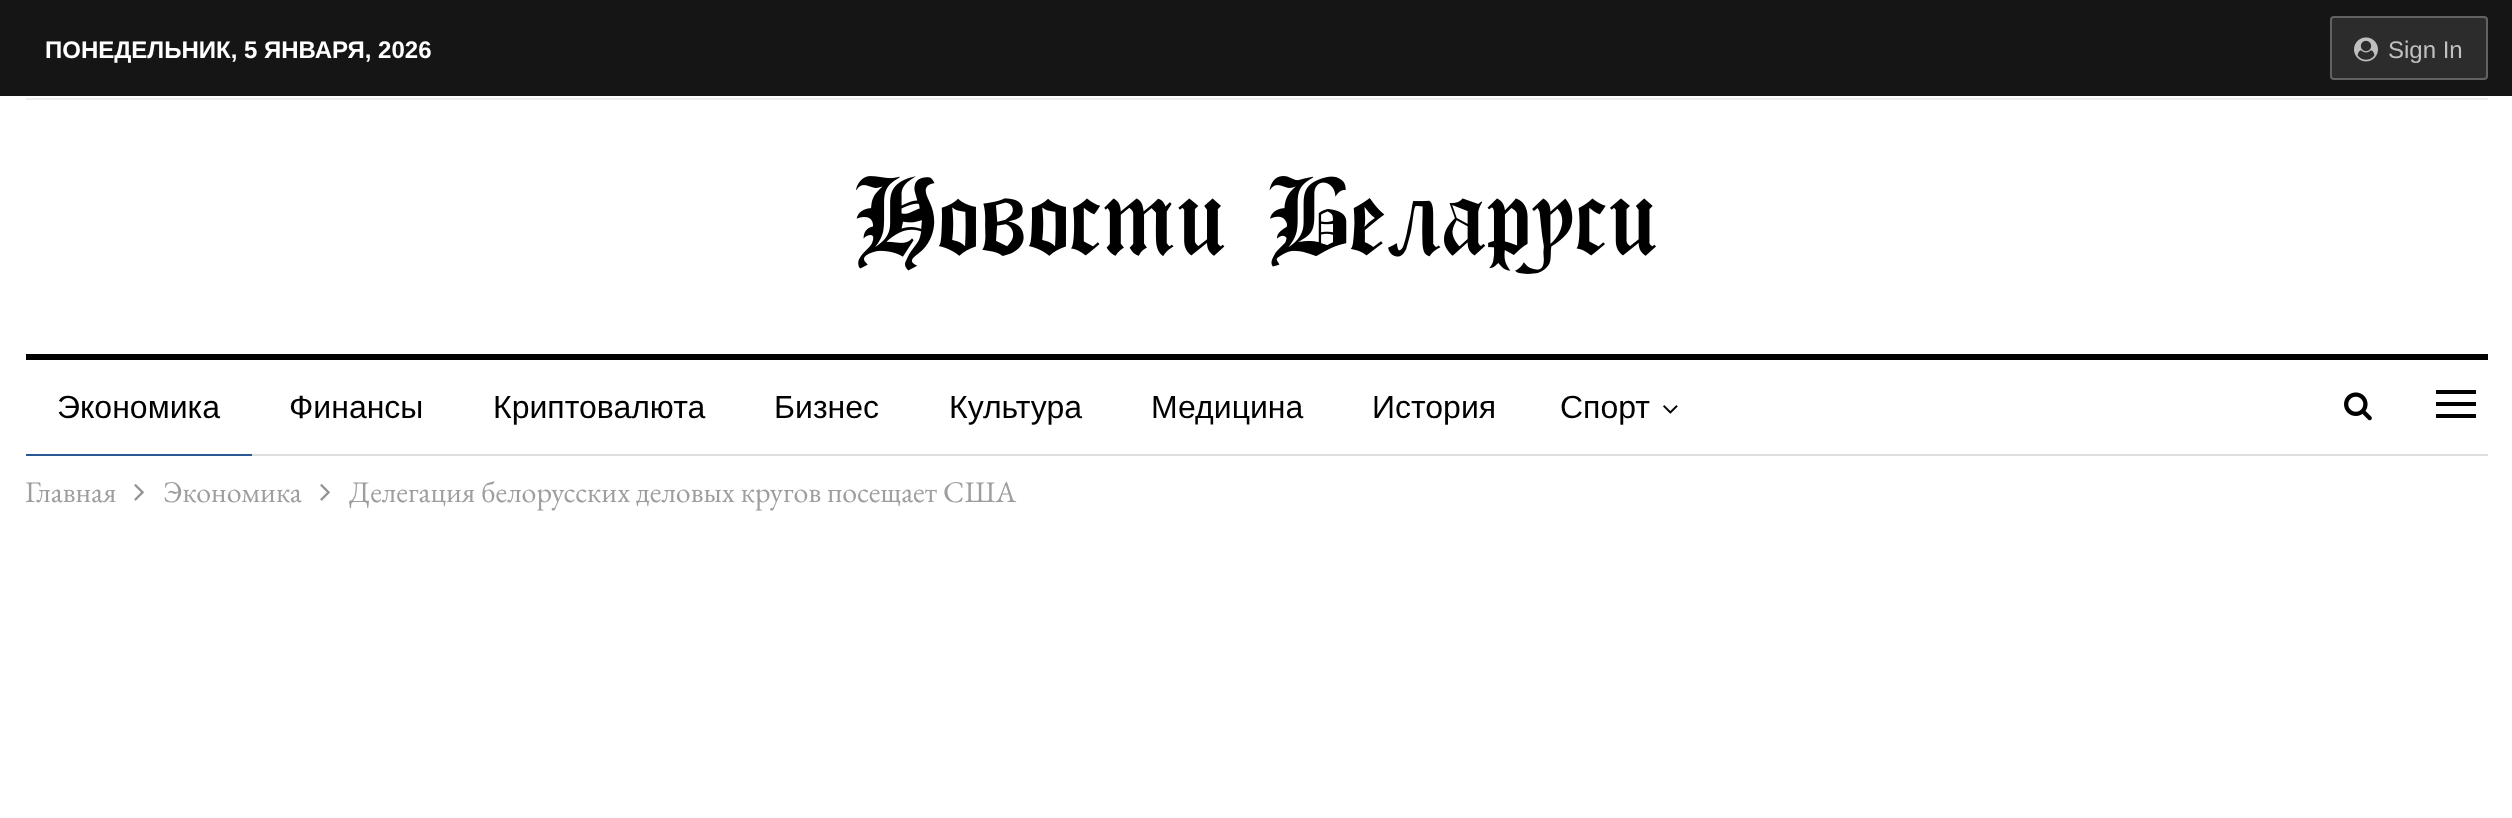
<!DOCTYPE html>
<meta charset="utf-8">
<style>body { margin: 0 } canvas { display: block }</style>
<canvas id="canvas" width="2512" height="818"></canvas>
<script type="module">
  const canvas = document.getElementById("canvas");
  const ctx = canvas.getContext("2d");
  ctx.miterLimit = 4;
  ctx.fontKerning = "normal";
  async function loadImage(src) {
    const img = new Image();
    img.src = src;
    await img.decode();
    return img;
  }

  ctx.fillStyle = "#ffffff";
  ctx.fillRect(0, 0, 2512, 818);
  ctx.fillStyle = "#151515";
  ctx.fillRect(0, 0, 2512, 96);
  ctx.fillStyle = "#ededed";
  ctx.fillRect(26, 98, 2462, 2);
  ctx.font = "bold 24px Liberation Sans";
  ctx.fillStyle = "#ffffff";
  ctx.fillText("ПОНЕДЕЛЬНИК, 5 ЯНВАРЯ, 2026", 45, 58);
  ctx.fillStyle = "#2c2c2c";
  ctx.beginPath();
  ctx.roundRect(2330, 16, 158, 64, 4);
  ctx.fill();
  ctx.beginPath();
  ctx.roundRect(2331, 17, 156, 62, 3);
  ctx.strokeStyle = "rgba(255, 255, 255, 0.26)";
  ctx.lineWidth = 2;
  ctx.stroke();
  ctx.drawImage(await loadImage("img1.png"), 2354, 37, 24, 25);
  ctx.font = "24px Liberation Sans";
  ctx.fillStyle = "#c0c0c0";
  ctx.fillText("Sign In", 2388, 58);
  ctx.drawImage(await loadImage("img2.png"), 856, 176, 800, 98);
  ctx.fillStyle = "#000000";
  ctx.fillRect(26, 354, 2462, 6);
  ctx.fillStyle = "#dedede";
  ctx.fillRect(252, 454, 2236, 2);
  ctx.font = "32px Liberation Sans";
  ctx.fillStyle = "#000000";
  ctx.fillText("Экономика", 57, 418);
  ctx.fillStyle = "#2c5795";
  ctx.fillRect(26, 454, 226, 2);
  ctx.fillStyle = "#000000";
  ctx.fillText("Финансы", 289, 418);
  ctx.fillText("Криптовалюта", 493, 418);
  ctx.fillText("Бизнес", 774, 418);
  ctx.fillText("Культура", 949, 418);
  ctx.fillText("Медицина", 1151, 418);
  ctx.fillText("История", 1372, 418);
  ctx.fillText("Спорт", 1560, 418);
  ctx.drawImage(await loadImage("img3.png"), 1663, 405, 15, 9);
  ctx.drawImage(await loadImage("img4.png"), 2344, 392, 28, 29);
  ctx.fillRect(2436, 402, 40, 4);
  ctx.fillRect(2436, 390, 40, 4);
  ctx.fillRect(2436, 414, 40, 4);
  ctx.font = "30px EB Garamond";
  ctx.fillStyle = "#9e9e9e";
  ctx.fillText("Главная", 25, 502);
  ctx.drawImage(await loadImage("img5.png"), 134, 484, 10, 17);
  ctx.fillText("Экономика", 163, 502);
  ctx.drawImage(await loadImage("img5.png"), 320, 484, 10, 17);
  ctx.fillText("Делегация белорусских деловых кругов посещает США", 349, 502);
</script>
